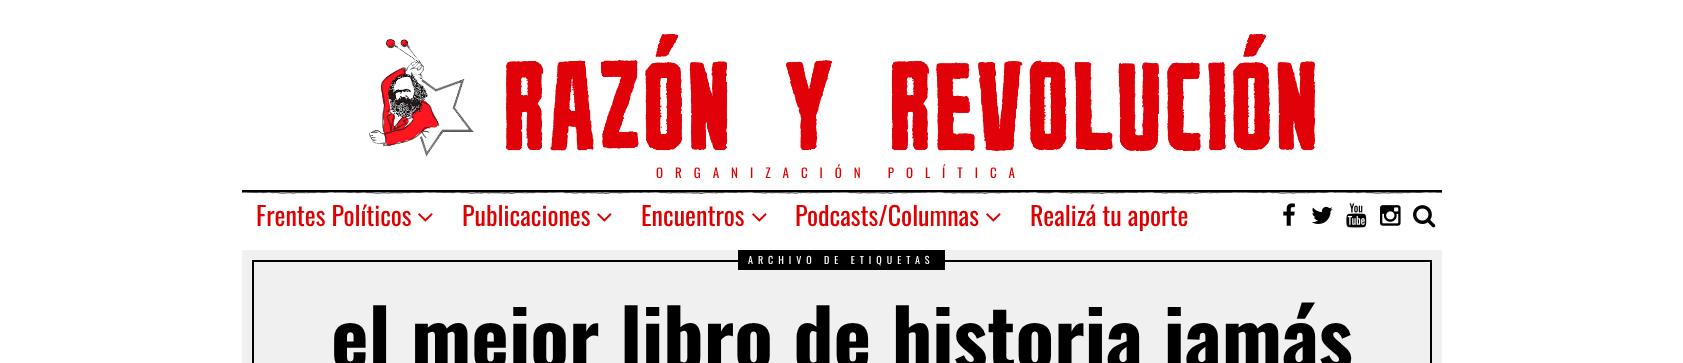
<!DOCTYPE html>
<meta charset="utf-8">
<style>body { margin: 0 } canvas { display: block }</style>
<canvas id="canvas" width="1683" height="363"></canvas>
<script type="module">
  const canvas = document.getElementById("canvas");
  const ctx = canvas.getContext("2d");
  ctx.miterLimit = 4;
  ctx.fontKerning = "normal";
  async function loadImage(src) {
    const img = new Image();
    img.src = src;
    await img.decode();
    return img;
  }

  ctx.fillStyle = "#ffffff";
  ctx.fillRect(0, 0, 1683, 363);
  ctx.drawImage(await loadImage("img1.png"), 369, 34, 947, 123);
  ctx.letterSpacing = "12px";
  ctx.font = "13px Oswald";
  ctx.fillStyle = "#e10000";
  ctx.fillText("ORGANIZACIÓN POLÍTICA", 656, 178);
  ctx.drawImage(await loadImage("img2.png"), 242, 192, 1200, 2);
  ctx.fillStyle = "#000000";
  ctx.fillRect(242, 190, 1200, 2);
  ctx.letterSpacing = "0px";
  ctx.font = "26px Oswald";
  ctx.fillStyle = "#e10000";
  ctx.fillText("Frentes Políticos", 256, 226);
  ctx.drawImage(await loadImage("img3.png"), 418, 213, 15, 9);
  ctx.fillText("Publicaciones", 462, 226);
  ctx.drawImage(await loadImage("img3.png"), 597, 213, 15, 9);
  ctx.fillText("Encuentros", 641, 226);
  ctx.drawImage(await loadImage("img3.png"), 752, 213, 15, 9);
  ctx.fillText("Podcasts/Columnas", 795, 226);
  ctx.drawImage(await loadImage("img3.png"), 986, 213, 15, 9);
  ctx.fillText("Realizá tu aporte", 1030, 226);
  ctx.drawImage(await loadImage("img4.png"), 1283, 203, 12, 23);
  ctx.drawImage(await loadImage("img5.png"), 1311, 206, 22, 18);
  ctx.drawImage(await loadImage("img6.png"), 1346, 203, 21, 25);
  ctx.drawImage(await loadImage("img7.png"), 1380, 205, 21, 21);
  ctx.drawImage(await loadImage("img8.png"), 1413, 205, 23, 23);
  ctx.fillStyle = "#f0f0f0";
  ctx.fillRect(242, 250, 1200, 113);
  ctx.strokeStyle = "#000000";
  ctx.lineWidth = 2;
  ctx.strokeRect(253, 261, 1178, 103);
  ctx.fillStyle = "#000000";
  ctx.fillRect(738, 250, 207, 20);
  ctx.letterSpacing = "5px";
  ctx.font = "10px Oswald";
  ctx.fillStyle = "#ffffff";
  ctx.fillText("ARCHIVO DE ETIQUETAS", 748, 264);
  ctx.letterSpacing = "0px";
  ctx.font = "bold 80px Oswald";
  ctx.fillStyle = "#000000";
  ctx.fillText("el mejor libro de historia jamás", 331, 370);
</script>
